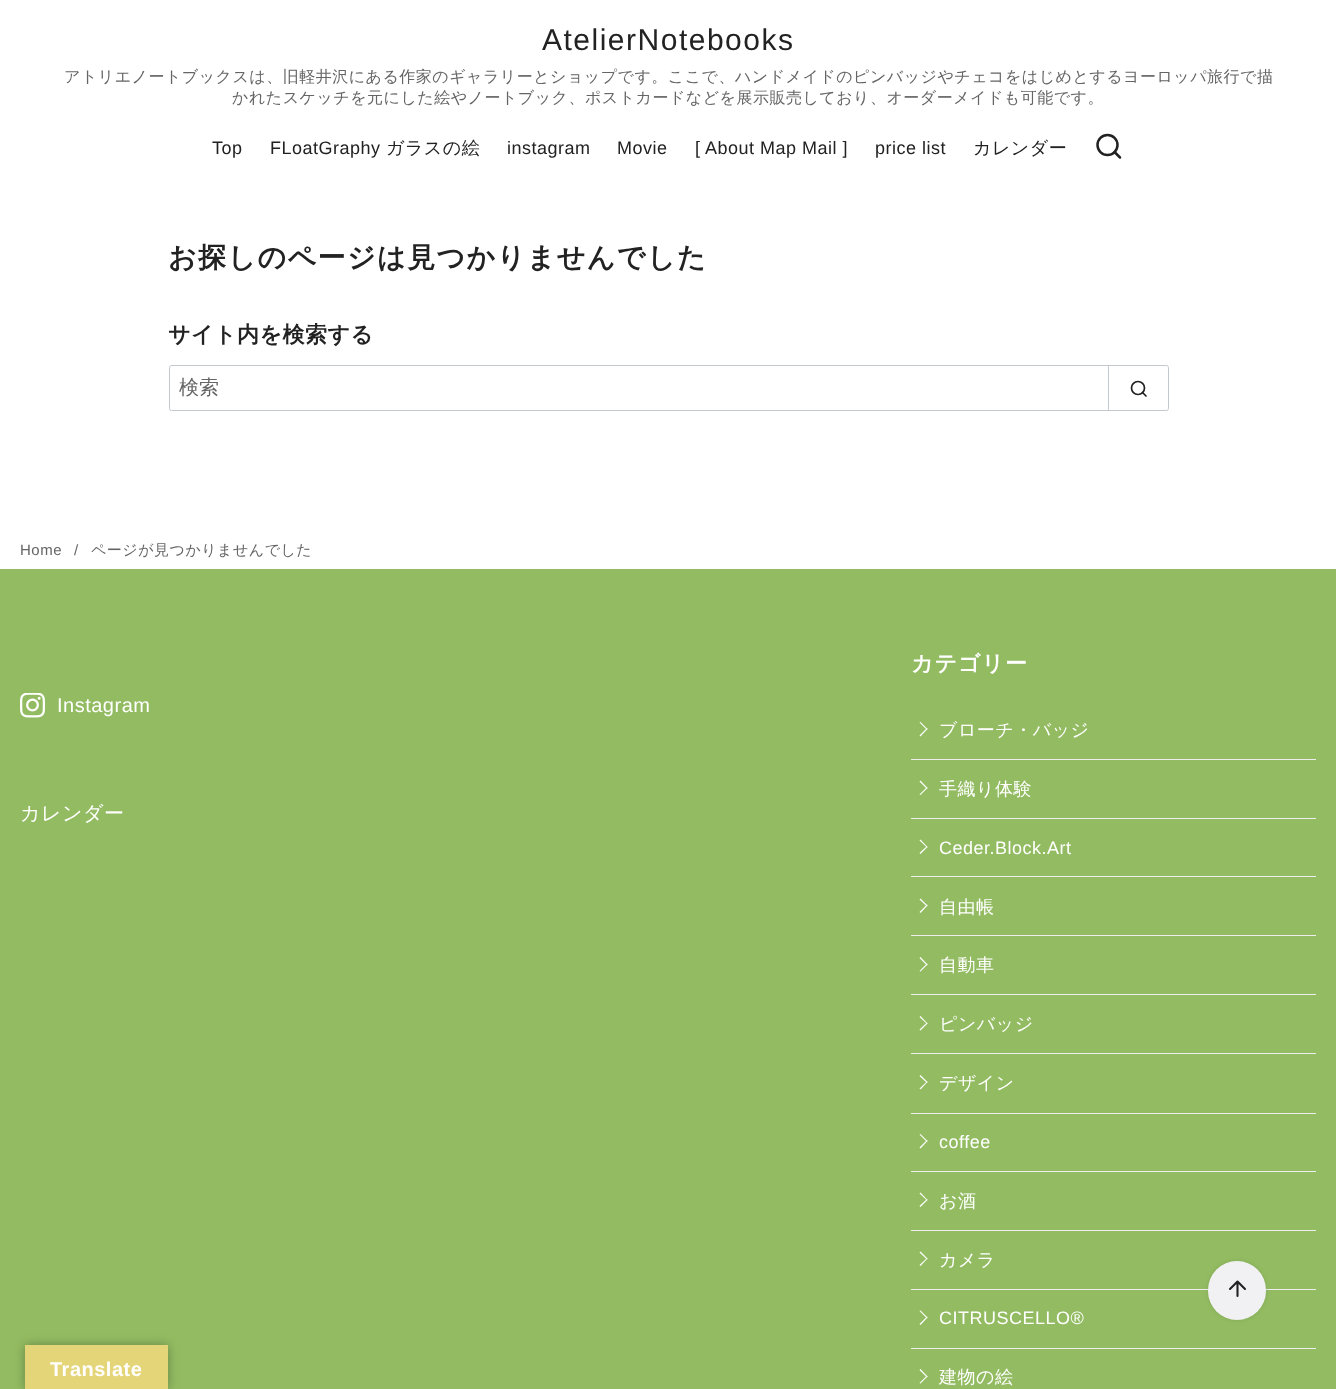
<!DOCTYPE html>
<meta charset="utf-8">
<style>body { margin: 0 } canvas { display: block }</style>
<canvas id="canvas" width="1336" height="1389"></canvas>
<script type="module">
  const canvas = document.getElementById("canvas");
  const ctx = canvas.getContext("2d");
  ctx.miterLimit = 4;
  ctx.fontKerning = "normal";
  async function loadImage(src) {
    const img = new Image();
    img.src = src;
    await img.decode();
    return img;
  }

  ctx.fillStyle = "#ffffff";
  ctx.fillRect(0, 0, 1336, 1389);
  ctx.letterSpacing = "1.5px";
  ctx.font = "30px Liberation Sans";
  ctx.fillStyle = "#222222";
  ctx.fillText("AtelierNotebooks", 542, 50);
  ctx.letterSpacing = "0.5px";
  ctx.font = "500 16px WenQuanYi Zen Hei";
  ctx.fillStyle = "#656565";
  ctx.fillText("アトリエノートブックスは、旧軽井沢にある作家のギャラリーとショップです。ここで、ハンドメイドのピンバッジやチェコをはじめとするヨーロッパ旅行で描", 64, 82);
  ctx.fillText("かれたスケッチを元にした絵やノートブック、ポストカードなどを展示販売しており、オーダーメイドも可能です。", 232, 103);
  ctx.font = "18px Liberation Sans";
  ctx.fillStyle = "#222222";
  ctx.fillText("Top", 212, 154);
  ctx.fillText("FLoatGraphy", 270, 154);
  ctx.font = "500 18px WenQuanYi Zen Hei";
  ctx.fillText("ガラスの絵", 386, 154);
  ctx.font = "18px Liberation Sans";
  ctx.fillText("instagram", 507, 154);
  ctx.fillText("Movie", 617, 154);
  ctx.fillText("[ About Map Mail ]", 695, 154);
  ctx.fillText("price list", 875, 154);
  ctx.font = "500 18px WenQuanYi Zen Hei";
  ctx.fillText("カレンダー", 973, 154);
  ctx.beginPath();
  ctx.arc(1107.5, 145, 10, 0, Math.PI * 2);
  ctx.strokeStyle = "#222222";
  ctx.lineWidth = 2.5;
  ctx.stroke();
  ctx.beginPath();
  ctx.moveTo(1120, 157.5);
  ctx.lineTo(1114.5, 152);
  ctx.lineCap = "round";
  ctx.lineJoin = "round";
  ctx.stroke();
  ctx.letterSpacing = "1.4px";
  ctx.font = "bold 28px WenQuanYi Zen Hei";
  ctx.fillText("お探しのページは見つかりませんでした", 168, 267);
  ctx.letterSpacing = "0.5px";
  ctx.font = "bold 22px WenQuanYi Zen Hei";
  ctx.fillText("サイト内を検索する", 168, 342);
  ctx.beginPath();
  ctx.roundRect(169.5, 365.5, 999, 45, 2);
  ctx.strokeStyle = "#c4c9cd";
  ctx.lineWidth = 1;
  ctx.lineJoin = "miter";
  ctx.stroke();
  ctx.letterSpacing = "0px";
  ctx.font = "500 20px WenQuanYi Zen Hei";
  ctx.fillStyle = "#656565";
  ctx.fillText("検索", 179, 394);
  ctx.fillStyle = "rgba(189, 195, 199, 0.9)";
  ctx.fillRect(1108, 365, 1, 46);
  ctx.beginPath();
  ctx.arc(1138, 388, 6.5, 0, Math.PI * 2);
  ctx.strokeStyle = "#222222";
  ctx.lineWidth = 1.7;
  ctx.stroke();
  ctx.beginPath();
  ctx.moveTo(1146, 396);
  ctx.lineTo(1142.5, 392.5);
  ctx.lineJoin = "round";
  ctx.stroke();
  ctx.letterSpacing = "0.5px";
  ctx.font = "15px Liberation Sans";
  ctx.fillStyle = "#656565";
  ctx.fillText("Home", 20, 555);
  ctx.fillText("/", 74, 555);
  ctx.font = "500 15px WenQuanYi Zen Hei";
  ctx.fillText("ページが見つかりませんでした", 91, 555);
  ctx.fillStyle = "#93bc62";
  ctx.fillRect(0, 569, 1336, 820);
  ctx.drawImage(await loadImage("img1.png"), 20, 693, 25, 25);
  ctx.font = "20px Liberation Sans";
  ctx.fillStyle = "#ffffff";
  ctx.fillText("Instagram", 57, 712);
  ctx.font = "500 20px WenQuanYi Zen Hei";
  ctx.fillText("カレンダー", 20, 820);
  ctx.letterSpacing = "1px";
  ctx.font = "bold 22px WenQuanYi Zen Hei";
  ctx.fillText("カテゴリー", 911, 671);
  ctx.fillStyle = "#eeeeee";
  ctx.fillRect(911, 759, 405, 1);
  ctx.fillStyle = "#ffffff";
  ctx.beginPath();
  ctx.moveTo(919.5, 722.5);
  ctx.lineTo(920.5, 722);
  ctx.lineTo(927.5, 729);
  ctx.lineTo(927, 730);
  ctx.closePath();
  ctx.fill();
  ctx.beginPath();
  ctx.moveTo(919.5, 735.5);
  ctx.lineTo(927, 728);
  ctx.lineTo(927.5, 729);
  ctx.lineTo(920.5, 736.5);
  ctx.closePath();
  ctx.fill();
  ctx.letterSpacing = "0.5px";
  ctx.font = "500 18px WenQuanYi Zen Hei";
  ctx.fillText("ブローチ・バッジ", 939, 736);
  ctx.fillStyle = "#eeeeee";
  ctx.fillRect(911, 818, 405, 1);
  ctx.fillStyle = "#ffffff";
  ctx.beginPath();
  ctx.moveTo(919.5, 781.5);
  ctx.lineTo(920.5, 780.5);
  ctx.lineTo(927.5, 788);
  ctx.lineTo(927, 789);
  ctx.closePath();
  ctx.fill();
  ctx.beginPath();
  ctx.moveTo(919.5, 794.5);
  ctx.lineTo(927, 787);
  ctx.lineTo(927.5, 788);
  ctx.lineTo(920.5, 795);
  ctx.closePath();
  ctx.fill();
  ctx.fillText("手織り体験", 939, 795);
  ctx.fillStyle = "#eeeeee";
  ctx.fillRect(911, 876, 405, 1);
  ctx.fillStyle = "#ffffff";
  ctx.beginPath();
  ctx.moveTo(919.5, 840.5);
  ctx.lineTo(920.5, 839.5);
  ctx.lineTo(927.5, 847);
  ctx.lineTo(927, 847.5);
  ctx.closePath();
  ctx.fill();
  ctx.beginPath();
  ctx.moveTo(919.5, 853);
  ctx.lineTo(927, 846);
  ctx.lineTo(927.5, 847);
  ctx.lineTo(920.5, 854);
  ctx.closePath();
  ctx.fill();
  ctx.font = "18px Liberation Sans";
  ctx.fillText("Ceder.Block.Art", 939, 854);
  ctx.fillStyle = "#eeeeee";
  ctx.fillRect(911, 935, 405, 1);
  ctx.fillStyle = "#ffffff";
  ctx.beginPath();
  ctx.moveTo(919.5, 899.5);
  ctx.lineTo(920.5, 898.5);
  ctx.lineTo(927.5, 905.5);
  ctx.lineTo(927, 906.5);
  ctx.closePath();
  ctx.fill();
  ctx.beginPath();
  ctx.moveTo(919.5, 912);
  ctx.lineTo(927, 904.5);
  ctx.lineTo(927.5, 905.5);
  ctx.lineTo(920.5, 913);
  ctx.closePath();
  ctx.fill();
  ctx.font = "500 18px WenQuanYi Zen Hei";
  ctx.fillText("自由帳", 939, 913);
  ctx.fillStyle = "#eeeeee";
  ctx.fillRect(911, 994, 405, 1);
  ctx.fillStyle = "#ffffff";
  ctx.beginPath();
  ctx.moveTo(919.5, 958);
  ctx.lineTo(920.5, 957);
  ctx.lineTo(927.5, 964.5);
  ctx.lineTo(927, 965.5);
  ctx.closePath();
  ctx.fill();
  ctx.beginPath();
  ctx.moveTo(919.5, 971);
  ctx.lineTo(927, 963.5);
  ctx.lineTo(927.5, 964.5);
  ctx.lineTo(920.5, 971.5);
  ctx.closePath();
  ctx.fill();
  ctx.fillText("自動車", 939, 971);
  ctx.fillStyle = "#eeeeee";
  ctx.fillRect(911, 1053, 405, 1);
  ctx.fillStyle = "#ffffff";
  ctx.beginPath();
  ctx.moveTo(919.5, 1017);
  ctx.lineTo(920.5, 1016);
  ctx.lineTo(927.5, 1023.5);
  ctx.lineTo(927, 1024);
  ctx.closePath();
  ctx.fill();
  ctx.beginPath();
  ctx.moveTo(919.5, 1029.5);
  ctx.lineTo(927, 1022.5);
  ctx.lineTo(927.5, 1023.5);
  ctx.lineTo(920.5, 1030.5);
  ctx.closePath();
  ctx.fill();
  ctx.fillText("ピンバッジ", 939, 1030);
  ctx.fillStyle = "#eeeeee";
  ctx.fillRect(911, 1113, 405, 1);
  ctx.fillStyle = "#ffffff";
  ctx.beginPath();
  ctx.moveTo(919.5, 1076);
  ctx.lineTo(920.5, 1075);
  ctx.lineTo(927.5, 1082);
  ctx.lineTo(927, 1083);
  ctx.closePath();
  ctx.fill();
  ctx.beginPath();
  ctx.moveTo(919.5, 1088.5);
  ctx.lineTo(927, 1081.5);
  ctx.lineTo(927.5, 1082);
  ctx.lineTo(920.5, 1089.5);
  ctx.closePath();
  ctx.fill();
  ctx.fillText("デザイン", 939, 1089);
  ctx.fillStyle = "#eeeeee";
  ctx.fillRect(911, 1171, 405, 1);
  ctx.fillStyle = "#ffffff";
  ctx.beginPath();
  ctx.moveTo(919.5, 1134.5);
  ctx.lineTo(920.5, 1134);
  ctx.lineTo(927.5, 1141);
  ctx.lineTo(927, 1142);
  ctx.closePath();
  ctx.fill();
  ctx.beginPath();
  ctx.moveTo(919.5, 1147.5);
  ctx.lineTo(927, 1140);
  ctx.lineTo(927.5, 1141);
  ctx.lineTo(920.5, 1148.5);
  ctx.closePath();
  ctx.fill();
  ctx.font = "18px Liberation Sans";
  ctx.fillText("coffee", 939, 1148);
  ctx.fillStyle = "#eeeeee";
  ctx.fillRect(911, 1230, 405, 1);
  ctx.fillStyle = "#ffffff";
  ctx.beginPath();
  ctx.moveTo(919.5, 1193.5);
  ctx.lineTo(920.5, 1192.5);
  ctx.lineTo(927.5, 1200);
  ctx.lineTo(927, 1200.5);
  ctx.closePath();
  ctx.fill();
  ctx.beginPath();
  ctx.moveTo(919.5, 1206);
  ctx.lineTo(927, 1199);
  ctx.lineTo(927.5, 1200);
  ctx.lineTo(920.5, 1207);
  ctx.closePath();
  ctx.fill();
  ctx.font = "500 18px WenQuanYi Zen Hei";
  ctx.fillText("お酒", 939, 1207);
  ctx.fillStyle = "#eeeeee";
  ctx.fillRect(911, 1289, 405, 1);
  ctx.fillStyle = "#ffffff";
  ctx.beginPath();
  ctx.moveTo(919.5, 1252.5);
  ctx.lineTo(920.5, 1251.5);
  ctx.lineTo(927.5, 1258.5);
  ctx.lineTo(927, 1259.5);
  ctx.closePath();
  ctx.fill();
  ctx.beginPath();
  ctx.moveTo(919.5, 1265);
  ctx.lineTo(927, 1258);
  ctx.lineTo(927.5, 1258.5);
  ctx.lineTo(920.5, 1266);
  ctx.closePath();
  ctx.fill();
  ctx.fillText("カメラ", 939, 1266);
  ctx.fillStyle = "#eeeeee";
  ctx.fillRect(911, 1348, 405, 1);
  ctx.fillStyle = "#ffffff";
  ctx.beginPath();
  ctx.moveTo(919.5, 1311);
  ctx.lineTo(920.5, 1310.5);
  ctx.lineTo(927.5, 1317.5);
  ctx.lineTo(927, 1318.5);
  ctx.closePath();
  ctx.fill();
  ctx.beginPath();
  ctx.moveTo(919.5, 1324);
  ctx.lineTo(927, 1316.5);
  ctx.lineTo(927.5, 1317.5);
  ctx.lineTo(920.5, 1325);
  ctx.closePath();
  ctx.fill();
  ctx.font = "18px Liberation Sans";
  ctx.fillText("CITRUSCELLO®︎", 939, 1324);
  ctx.beginPath();
  ctx.moveTo(919.5, 1370);
  ctx.lineTo(920.5, 1369);
  ctx.lineTo(927.5, 1376.5);
  ctx.lineTo(927, 1377.5);
  ctx.closePath();
  ctx.fill();
  ctx.beginPath();
  ctx.moveTo(919.5, 1383);
  ctx.lineTo(927, 1375.5);
  ctx.lineTo(927.5, 1376.5);
  ctx.lineTo(920.5, 1383.5);
  ctx.closePath();
  ctx.fill();
  ctx.font = "500 18px WenQuanYi Zen Hei";
  ctx.fillText("建物の絵", 939, 1383);
  ctx.fillStyle = "rgba(0, 0, 0, 0.1)";
  ctx.filter = "blur(2.5px)";
  ctx.beginPath();
  ctx.roundRect(1208, 1261, 58, 59, 29);
  ctx.fill();
  ctx.filter = "none";
  ctx.fillStyle = "#f1f1f3";
  ctx.beginPath();
  ctx.roundRect(1208, 1261, 58, 59, 29);
  ctx.fill();
  ctx.beginPath();
  ctx.moveTo(1237.5, 1296);
  ctx.lineTo(1237.5, 1281.5);
  ctx.moveTo(1230, 1289);
  ctx.lineTo(1237.5, 1281.5);
  ctx.lineTo(1245, 1289);
  ctx.lineWidth = 2.1;
  ctx.stroke();
  ctx.fillStyle = "rgba(0, 0, 0, 0.3)";
  ctx.filter = "blur(5.5px)";
  ctx.beginPath();
  ctx.rect(25, 1345, 143, 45);
  ctx.fill();
  ctx.filter = "none";
  ctx.fillStyle = "#e5d579";
  ctx.fillRect(25, 1345, 143, 44);
  ctx.font = "bold 20px Liberation Sans";
  ctx.fillStyle = "#ffffff";
  ctx.fillText("Translate", 50, 1376);
</script>
